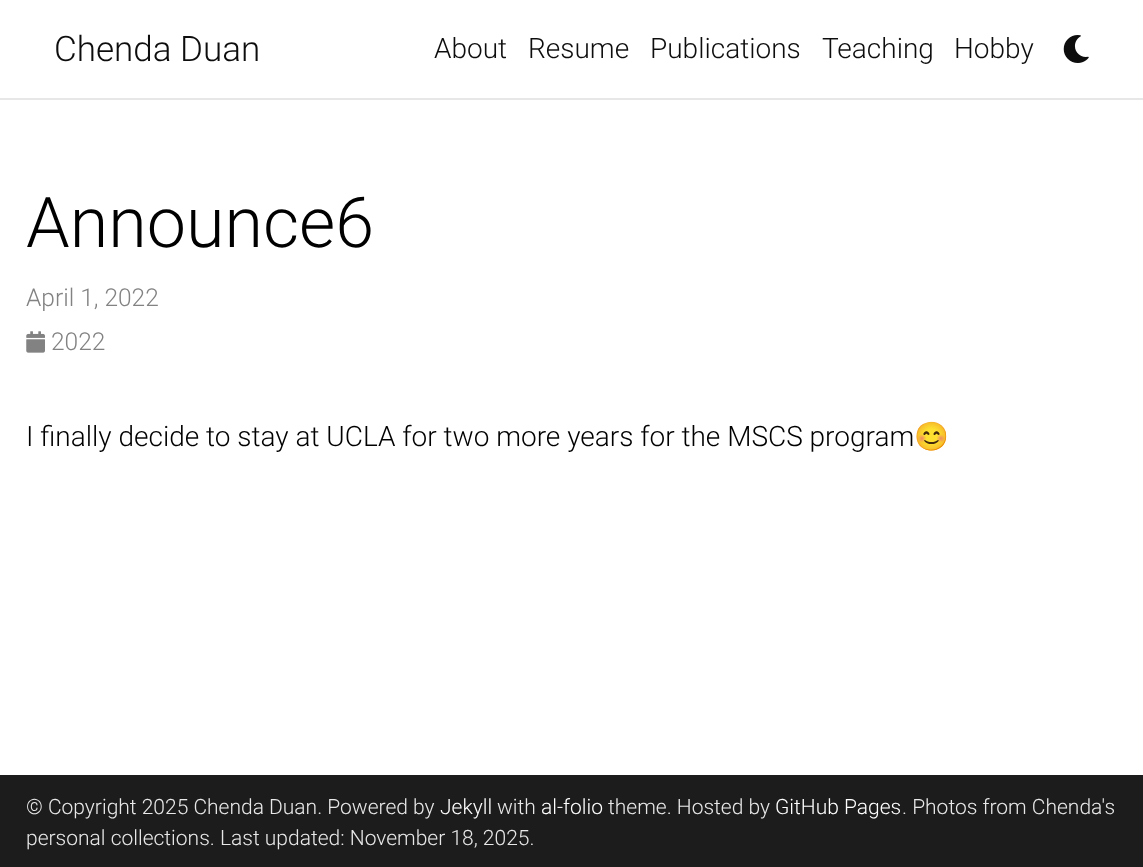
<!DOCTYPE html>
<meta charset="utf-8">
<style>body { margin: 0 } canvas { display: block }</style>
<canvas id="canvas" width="1143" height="867"></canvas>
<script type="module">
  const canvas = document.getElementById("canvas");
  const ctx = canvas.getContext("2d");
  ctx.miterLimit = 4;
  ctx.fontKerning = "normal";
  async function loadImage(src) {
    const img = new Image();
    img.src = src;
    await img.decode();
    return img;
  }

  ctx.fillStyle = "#ffffff";
  ctx.fillRect(0, 0, 1143, 867);
  ctx.fillStyle = "#e7e7e7";
  ctx.fillRect(0, 98, 1143, 2);
  ctx.font = "300 35px Roboto";
  ctx.fillStyle = "#0d0d0d";
  ctx.fillText("Chenda Duan", 54, 61);
  ctx.font = "300 28px Roboto";
  ctx.fillText("About", 434, 58);
  ctx.fillText("Resume", 528, 58);
  ctx.fillText("Publications", 650, 58);
  ctx.fillText("Teaching", 822, 58);
  ctx.fillText("Hobby", 954, 58);
  ctx.drawImage(await loadImage("img1.png"), 1063, 35, 26, 28);
  ctx.font = "300 70px Roboto";
  ctx.fillStyle = "#000000";
  ctx.fillText("Announce6", 26, 247);
  ctx.font = "300 24.5px Roboto";
  ctx.fillStyle = "#828282";
  ctx.fillText("April 1, 2022", 26, 306);
  ctx.drawImage(await loadImage("img2.png"), 26, 331, 19, 22);
  ctx.fillText("2022", 51, 350);
  ctx.font = "300 28px Roboto";
  ctx.fillStyle = "#000000";
  ctx.fillText("I finally decide to stay at UCLA for two more years for the MSCS program", 26, 446);
  ctx.font = "28px Noto Color Emoji";
  ctx.fillText("😊", 914, 446);
  ctx.fillStyle = "#1c1c1d";
  ctx.fillRect(0, 775, 1143, 92);
  ctx.font = "300 21px Roboto";
  ctx.fillStyle = "#e8e8e8";
  ctx.fillText("© Copyright 2025 Chenda Duan. Powered by", 26, 814);
  ctx.fillStyle = "#ffffff";
  ctx.fillText("Jekyll", 440, 814);
  ctx.fillStyle = "#e8e8e8";
  ctx.fillText("with", 497, 814);
  ctx.fillStyle = "#ffffff";
  ctx.fillText("al-folio", 541, 814);
  ctx.fillStyle = "#e8e8e8";
  ctx.fillText("theme. Hosted by", 608, 814);
  ctx.fillStyle = "#ffffff";
  ctx.fillText("GitHub Pages", 775, 814);
  ctx.fillStyle = "#e8e8e8";
  ctx.fillText(". Photos from Chenda's", 902, 814);
  ctx.fillText("personal collections. Last updated: November 18, 2025.", 26, 845);
</script>
